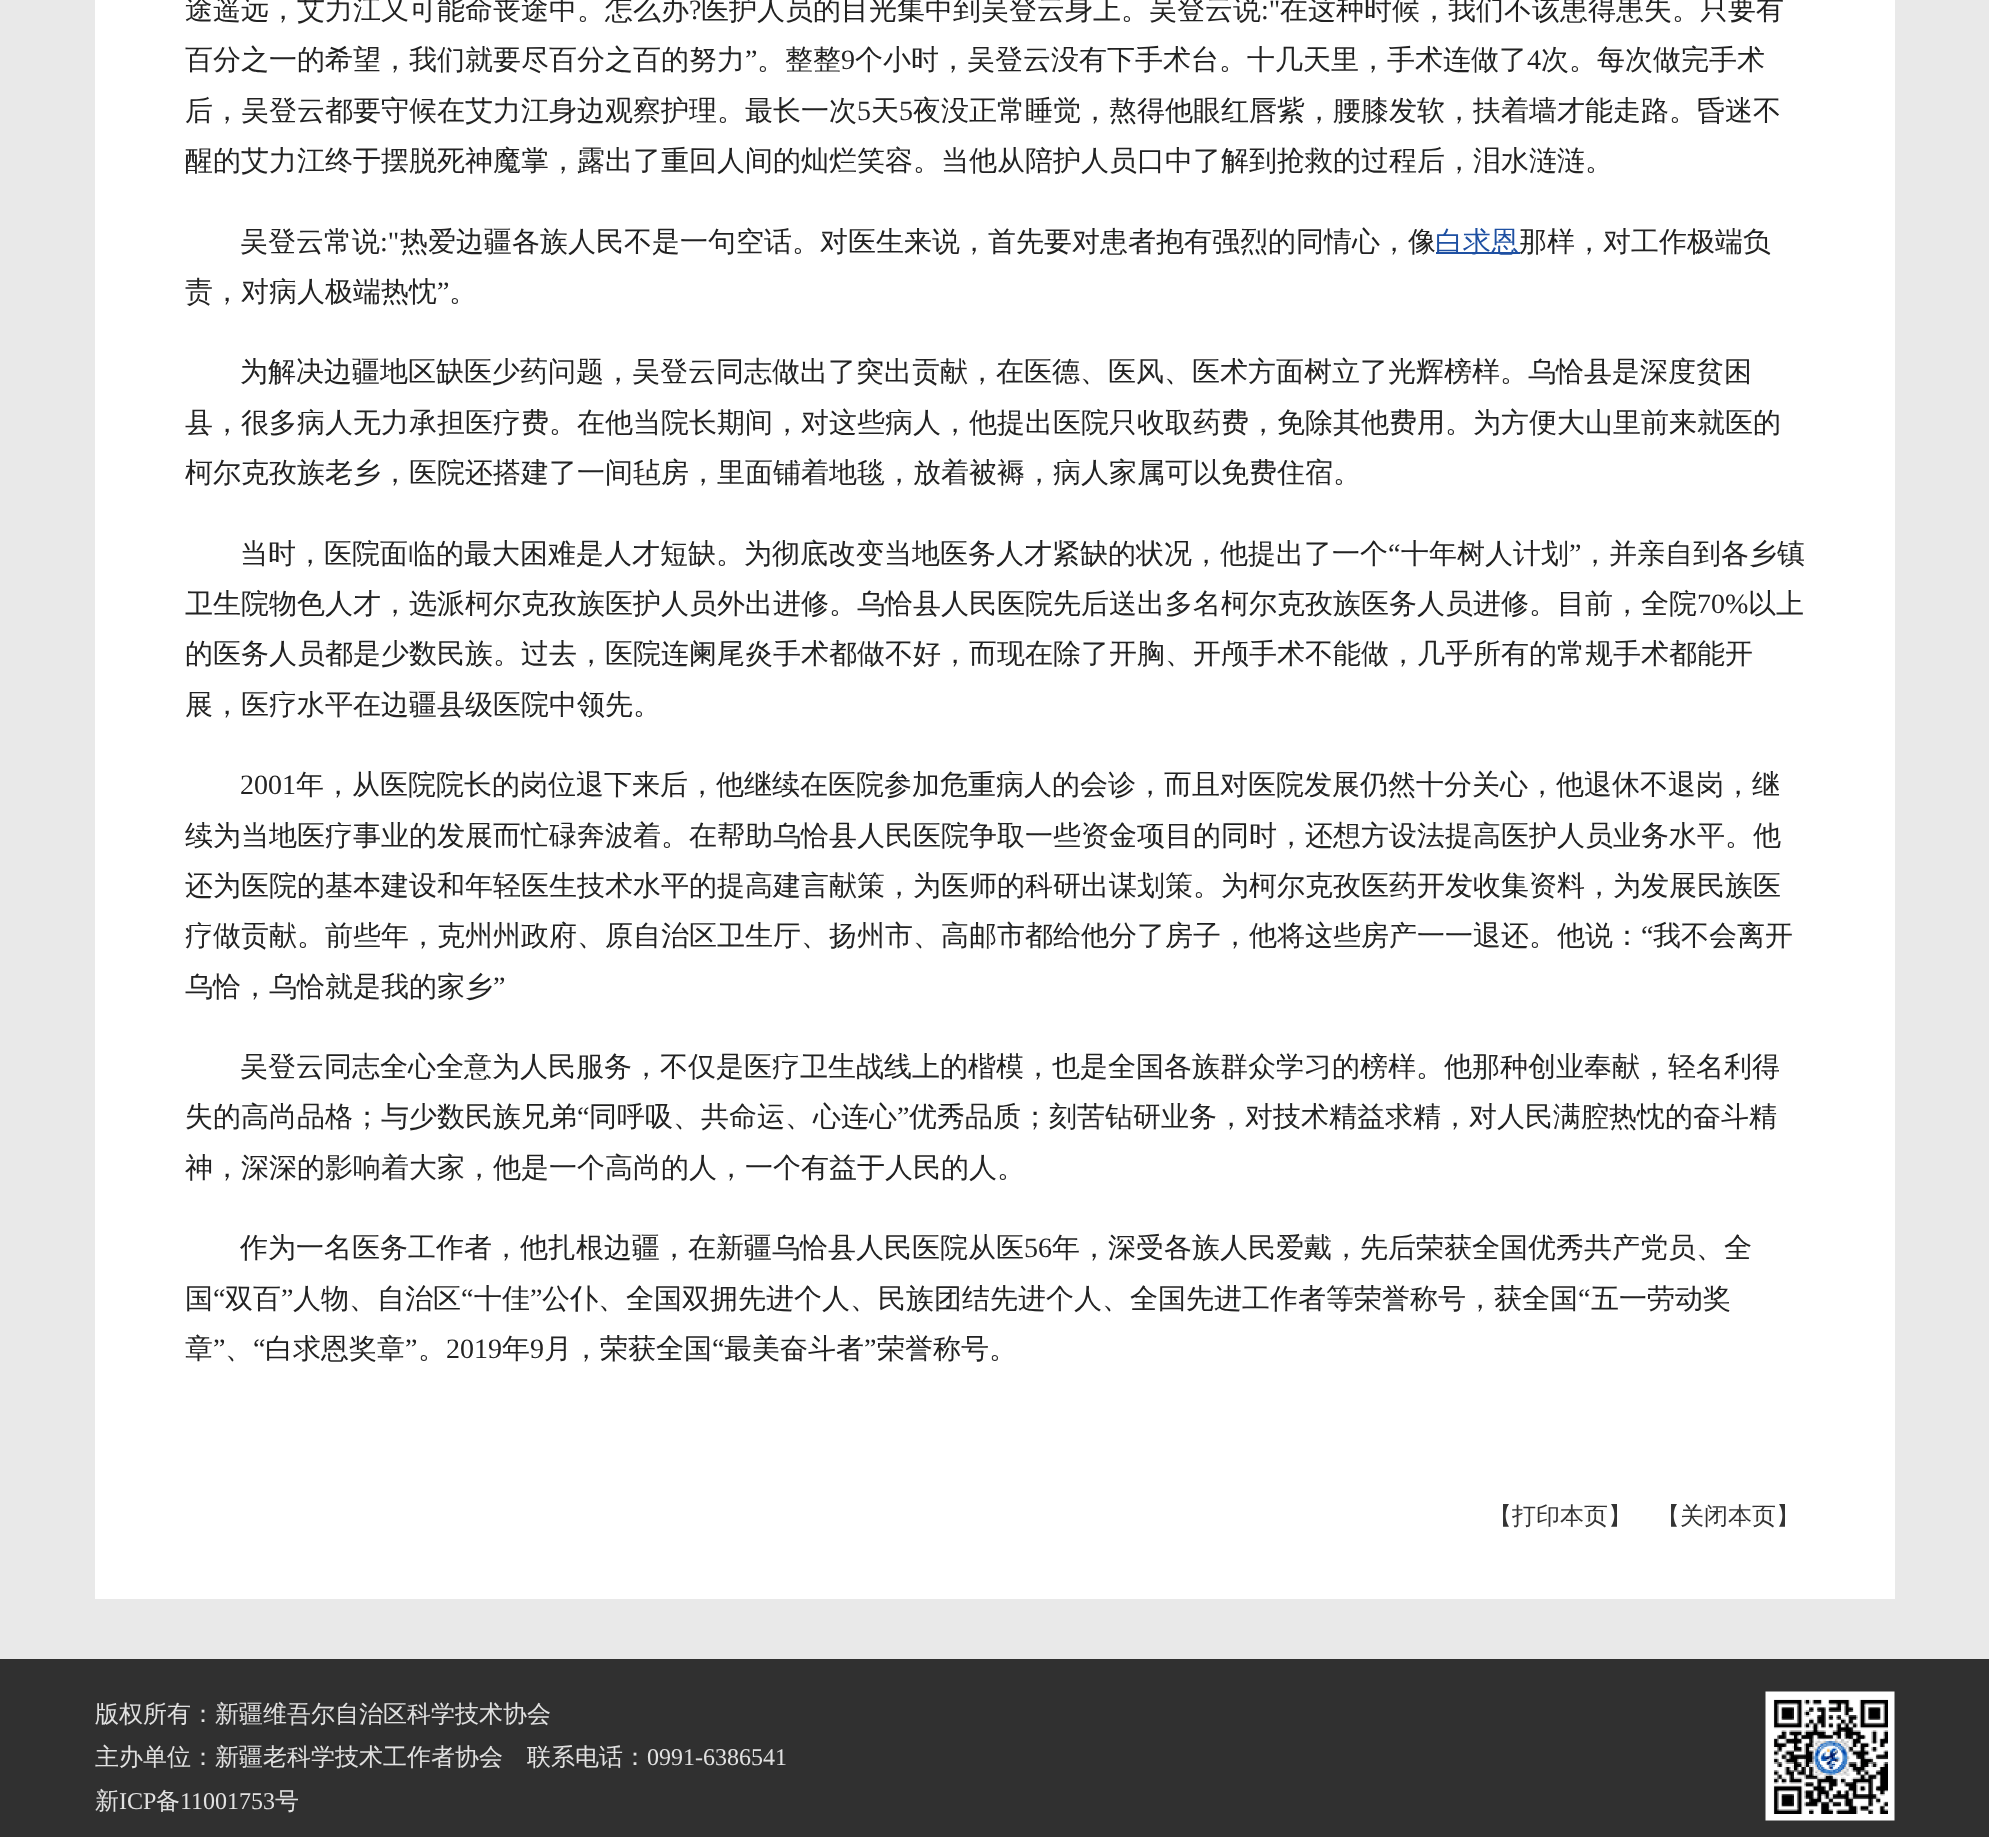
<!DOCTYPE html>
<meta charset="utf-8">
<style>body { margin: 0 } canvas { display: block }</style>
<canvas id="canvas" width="1989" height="1837"></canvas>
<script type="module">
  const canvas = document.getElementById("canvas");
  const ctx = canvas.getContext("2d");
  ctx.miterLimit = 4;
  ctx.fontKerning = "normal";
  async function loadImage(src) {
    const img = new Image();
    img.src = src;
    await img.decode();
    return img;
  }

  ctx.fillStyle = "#e9e9e9";
  ctx.fillRect(0, 0, 1989, 1837);
  ctx.fillStyle = "#ffffff";
  ctx.fillRect(95, 0, 1800, 1599);
  ctx.font = "500 28px WenQuanYi Zen Hei";
  ctx.fillStyle = "#222222";
  ctx.fillText("途遥远，艾力江又可能命丧途中。怎么办", 185, 19);
  ctx.font = "28px Liberation Serif";
  ctx.fillText("?", 689, 19);
  ctx.font = "500 28px WenQuanYi Zen Hei";
  ctx.fillText("医护人员的目光集中到吴登云身上。吴登云说", 701, 19);
  ctx.font = "28px Liberation Serif";
  ctx.fillText(":\"", 1261, 19);
  ctx.font = "500 28px WenQuanYi Zen Hei";
  ctx.fillText("在这种时候，我们不该患得患失。只要有", 1280, 19);
  ctx.fillText("百分之一的希望，我们就要尽百分之百的努力", 185, 69);
  ctx.font = "28px Liberation Serif";
  ctx.fillText("”", 745, 69);
  ctx.font = "500 28px WenQuanYi Zen Hei";
  ctx.fillText("。整整", 757, 69);
  ctx.font = "28px Liberation Serif";
  ctx.fillText("9", 841, 69);
  ctx.font = "500 28px WenQuanYi Zen Hei";
  ctx.fillText("个小时，吴登云没有下手术台。十几天里，手术连做了", 855, 69);
  ctx.font = "28px Liberation Serif";
  ctx.fillText("4", 1527, 69);
  ctx.font = "500 28px WenQuanYi Zen Hei";
  ctx.fillText("次。每次做完手术", 1541, 69);
  ctx.fillText("后，吴登云都要守候在艾力江身边观察护理。最长一次", 185, 120);
  ctx.font = "28px Liberation Serif";
  ctx.fillText("5", 857, 120);
  ctx.font = "500 28px WenQuanYi Zen Hei";
  ctx.fillText("天", 871, 120);
  ctx.font = "28px Liberation Serif";
  ctx.fillText("5", 899, 120);
  ctx.font = "500 28px WenQuanYi Zen Hei";
  ctx.fillText("夜没正常睡觉，熬得他眼红唇紫，腰膝发软，扶着墙才能走路。昏迷不", 913, 120);
  ctx.fillText("醒的艾力江终于摆脱死神魔掌，露出了重回人间的灿烂笑容。当他从陪护人员口中了解到抢救的过程后，泪水涟涟。", 185, 170);
  ctx.fillText("吴登云常说", 240, 251);
  ctx.font = "28px Liberation Serif";
  ctx.fillText(":\"", 380, 251);
  ctx.font = "500 28px WenQuanYi Zen Hei";
  ctx.fillText("热爱边疆各族人民不是一句空话。对医生来说，首先要对患者抱有强烈的同情心，像", 400, 251);
  ctx.fillStyle = "#1e50a2";
  ctx.fillRect(1436, 252, 84, 2);
  ctx.fillText("白求恩", 1435, 251);
  ctx.fillStyle = "#222222";
  ctx.fillText("那样，对工作极端负", 1519, 251);
  ctx.fillText("责，对病人极端热忱", 185, 301);
  ctx.font = "28px Liberation Serif";
  ctx.fillText("”", 437, 301);
  ctx.font = "500 28px WenQuanYi Zen Hei";
  ctx.fillText("。", 449, 301);
  ctx.fillText("为解决边疆地区缺医少药问题，吴登云同志做出了突出贡献，在医德、医风、医术方面树立了光辉榜样。乌恰县是深度贫困", 240, 381);
  ctx.fillText("县，很多病人无力承担医疗费。在他当院长期间，对这些病人，他提出医院只收取药费，免除其他费用。为方便大山里前来就医的", 185, 432);
  ctx.fillText("柯尔克孜族老乡，医院还搭建了一间毡房，里面铺着地毯，放着被褥，病人家属可以免费住宿。", 185, 482);
  ctx.fillText("当时，医院面临的最大困难是人才短缺。为彻底改变当地医务人才紧缺的状况，他提出了一个", 240, 563);
  ctx.font = "28px Liberation Serif";
  ctx.fillText("“", 1388, 563);
  ctx.font = "500 28px WenQuanYi Zen Hei";
  ctx.fillText("十年树人计划", 1401, 563);
  ctx.font = "28px Liberation Serif";
  ctx.fillText("”", 1569, 563);
  ctx.font = "500 28px WenQuanYi Zen Hei";
  ctx.fillText("，并亲自到各乡镇", 1581, 563);
  ctx.fillText("卫生院物色人才，选派柯尔克孜族医护人员外出进修。乌恰县人民医院先后送出多名柯尔克孜族医务人员进修。目前，全院", 185, 613);
  ctx.font = "28px Liberation Serif";
  ctx.fillText("70%", 1697, 613);
  ctx.font = "500 28px WenQuanYi Zen Hei";
  ctx.fillText("以上", 1748, 613);
  ctx.fillText("的医务人员都是少数民族。过去，医院连阑尾炎手术都做不好，而现在除了开胸、开颅手术不能做，几乎所有的常规手术都能开", 185, 663);
  ctx.fillText("展，医疗水平在边疆县级医院中领先。", 185, 714);
  ctx.font = "28px Liberation Serif";
  ctx.fillText("2001", 240, 794);
  ctx.font = "500 28px WenQuanYi Zen Hei";
  ctx.fillText("年，从医院院长的岗位退下来后，他继续在医院参加危重病人的会诊，而且对医院发展仍然十分关心，他退休不退岗，继", 296, 794);
  ctx.fillText("续为当地医疗事业的发展而忙碌奔波着。在帮助乌恰县人民医院争取一些资金项目的同时，还想方设法提高医护人员业务水平。他", 185, 845);
  ctx.fillText("还为医院的基本建设和年轻医生技术水平的提高建言献策，为医师的科研出谋划策。为柯尔克孜医药开发收集资料，为发展民族医", 185, 895);
  ctx.fillText("疗做贡献。前些年，克州州政府、原自治区卫生厅、扬州市、高邮市都给他分了房子，他将这些房产一一退还。他说：", 185, 945);
  ctx.font = "28px Liberation Serif";
  ctx.fillText("“", 1641, 945);
  ctx.font = "500 28px WenQuanYi Zen Hei";
  ctx.fillText("我不会离开", 1653, 945);
  ctx.fillText("乌恰，乌恰就是我的家乡", 185, 996);
  ctx.font = "28px Liberation Serif";
  ctx.fillText("”", 493, 996);
  ctx.font = "500 28px WenQuanYi Zen Hei";
  ctx.fillText("吴登云同志全心全意为人民服务，不仅是医疗卫生战线上的楷模，也是全国各族群众学习的榜样。他那种创业奉献，轻名利得", 240, 1076);
  ctx.fillText("失的高尚品格；与少数民族兄弟", 185, 1126);
  ctx.font = "28px Liberation Serif";
  ctx.fillText("“", 577, 1126);
  ctx.font = "500 28px WenQuanYi Zen Hei";
  ctx.fillText("同呼吸、共命运、心连心", 589, 1126);
  ctx.font = "28px Liberation Serif";
  ctx.fillText("”", 897, 1126);
  ctx.font = "500 28px WenQuanYi Zen Hei";
  ctx.fillText("优秀品质；刻苦钻研业务，对技术精益求精，对人民满腔热忱的奋斗精", 909, 1126);
  ctx.fillText("神，深深的影响着大家，他是一个高尚的人，一个有益于人民的人。", 185, 1177);
  ctx.fillText("作为一名医务工作者，他扎根边疆，在新疆乌恰县人民医院从医", 240, 1257);
  ctx.font = "28px Liberation Serif";
  ctx.fillText("56", 1024, 1257);
  ctx.font = "500 28px WenQuanYi Zen Hei";
  ctx.fillText("年，深受各族人民爱戴，先后荣获全国优秀共产党员、全", 1052, 1257);
  ctx.fillText("国", 185, 1308);
  ctx.font = "28px Liberation Serif";
  ctx.fillText("“", 213, 1308);
  ctx.font = "500 28px WenQuanYi Zen Hei";
  ctx.fillText("双百", 225, 1308);
  ctx.font = "28px Liberation Serif";
  ctx.fillText("”", 281, 1308);
  ctx.font = "500 28px WenQuanYi Zen Hei";
  ctx.fillText("人物、自治区", 293, 1308);
  ctx.font = "28px Liberation Serif";
  ctx.fillText("“", 461, 1308);
  ctx.font = "500 28px WenQuanYi Zen Hei";
  ctx.fillText("十佳", 474, 1308);
  ctx.font = "28px Liberation Serif";
  ctx.fillText("”", 530, 1308);
  ctx.font = "500 28px WenQuanYi Zen Hei";
  ctx.fillText("公仆、全国双拥先进个人、民族团结先进个人、全国先进工作者等荣誉称号，获全国", 542, 1308);
  ctx.font = "28px Liberation Serif";
  ctx.fillText("“", 1578, 1308);
  ctx.font = "500 28px WenQuanYi Zen Hei";
  ctx.fillText("五一劳动奖", 1591, 1308);
  ctx.fillText("章", 185, 1358);
  ctx.font = "28px Liberation Serif";
  ctx.fillText("”", 213, 1358);
  ctx.fillText("“", 253, 1358);
  ctx.font = "500 28px WenQuanYi Zen Hei";
  ctx.fillText("白求恩奖章", 265, 1358);
  ctx.font = "28px Liberation Serif";
  ctx.fillText("”", 405, 1358);
  ctx.fillText("2019", 446, 1358);
  ctx.font = "500 28px WenQuanYi Zen Hei";
  ctx.fillText("年", 502, 1358);
  ctx.font = "28px Liberation Serif";
  ctx.fillText("9", 530, 1358);
  ctx.font = "500 28px WenQuanYi Zen Hei";
  ctx.fillText("月，荣获全国", 544, 1358);
  ctx.font = "28px Liberation Serif";
  ctx.fillText("“", 712, 1358);
  ctx.font = "500 28px WenQuanYi Zen Hei";
  ctx.fillText("最美奋斗者", 724, 1358);
  ctx.font = "28px Liberation Serif";
  ctx.fillText("”", 864, 1358);
  ctx.font = "500 28px WenQuanYi Zen Hei";
  ctx.fillText("荣誉称号。", 877, 1358);
  ctx.fillText("、", 225, 1358);
  ctx.fillText("。", 418, 1358);
  ctx.font = "500 24px WenQuanYi Zen Hei";
  ctx.fillStyle = "#333333";
  ctx.fillText("【打印本页】", 1488, 1524);
  ctx.fillText("【关闭本页】", 1656, 1524);
  ctx.fillStyle = "#303030";
  ctx.fillRect(0, 1659, 1989, 178);
  ctx.fillStyle = "#e1e1e1";
  ctx.fillText("版权所有：新疆维吾尔自治区科学技术协会", 95, 1722);
  ctx.fillText("主办单位：新疆老科学技术工作者协会", 95, 1765);
  ctx.fillText("联系电话：", 527, 1765);
  ctx.font = "24px Liberation Serif";
  ctx.fillText("0991-6386541", 647, 1765);
  ctx.font = "500 24px WenQuanYi Zen Hei";
  ctx.fillText("新", 95, 1809);
  ctx.font = "24px Liberation Serif";
  ctx.fillText("ICP", 119, 1809);
  ctx.font = "500 24px WenQuanYi Zen Hei";
  ctx.fillText("备", 156, 1809);
  ctx.font = "24px Liberation Serif";
  ctx.fillText("11001753", 180, 1809);
  ctx.font = "500 24px WenQuanYi Zen Hei";
  ctx.fillText("号", 275, 1809);
  ctx.drawImage(await loadImage("img1.png"), 1765, 1691, 130, 130);
</script>
